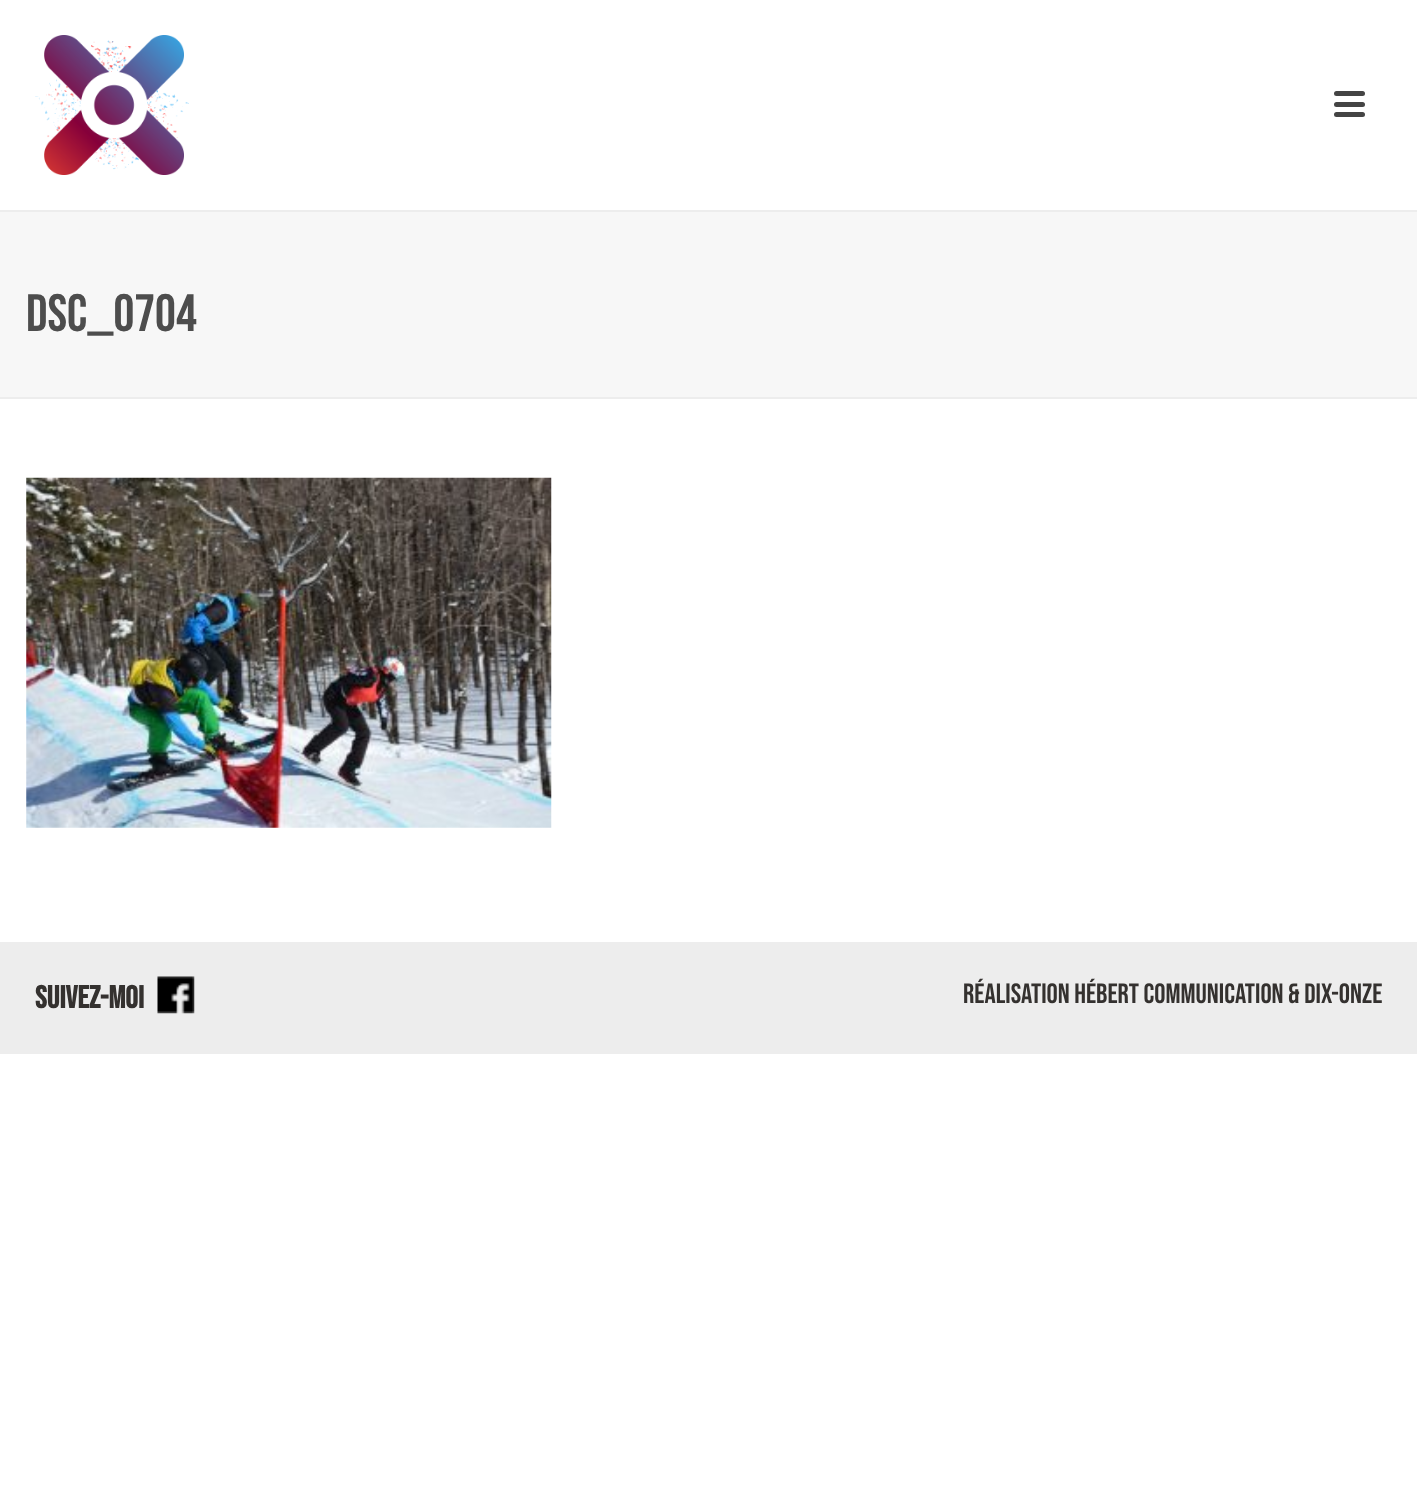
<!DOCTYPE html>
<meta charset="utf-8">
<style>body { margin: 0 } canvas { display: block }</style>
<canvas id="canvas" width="1417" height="1503"></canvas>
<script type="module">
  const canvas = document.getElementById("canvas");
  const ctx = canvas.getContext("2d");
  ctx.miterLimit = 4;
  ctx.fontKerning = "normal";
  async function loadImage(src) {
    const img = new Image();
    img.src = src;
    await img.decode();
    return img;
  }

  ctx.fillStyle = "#ffffff";
  ctx.fillRect(0, 0, 1417, 1503);
  ctx.fillStyle = "#f7f7f7";
  ctx.fillRect(0, 212, 1417, 185);
  ctx.fillStyle = "#ededed";
  ctx.fillRect(0, 397, 1417, 2);
  ctx.fillRect(0, 210, 1417, 2);
  ctx.drawImage(await loadImage("img1.png"), 35, 35, 154, 140);
  ctx.fillStyle = "#444444";
  ctx.beginPath();
  ctx.roundRect(1334, 91, 31, 5, 2.5);
  ctx.fill();
  ctx.beginPath();
  ctx.roundRect(1334, 102, 31, 5, 2.5);
  ctx.fill();
  ctx.beginPath();
  ctx.roundRect(1334, 112, 31, 5, 2.5);
  ctx.fill();
  ctx.font = "bold 52.5px 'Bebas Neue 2'";
  ctx.fillStyle = "#4d4d4d";
  ctx.fillText("DSC_0704", 26, 331);
  ctx.drawImage(await loadImage("img2.png"), 26, 477, 526, 351);
  ctx.fillStyle = "#ededed";
  ctx.fillRect(0, 942, 1417, 112);
  ctx.font = "bold 31.5px Bebas Neue";
  ctx.fillStyle = "#34312f";
  ctx.fillText("SUIVEZ-MOI", 35, 1008);
  ctx.drawImage(await loadImage("img3.png"), 157, 976, 38, 38);
  ctx.font = "28px Bebas Neue";
  ctx.fillText("Réalisation Hébert Communication & Dix-Onze", 963, 1003);
</script>
